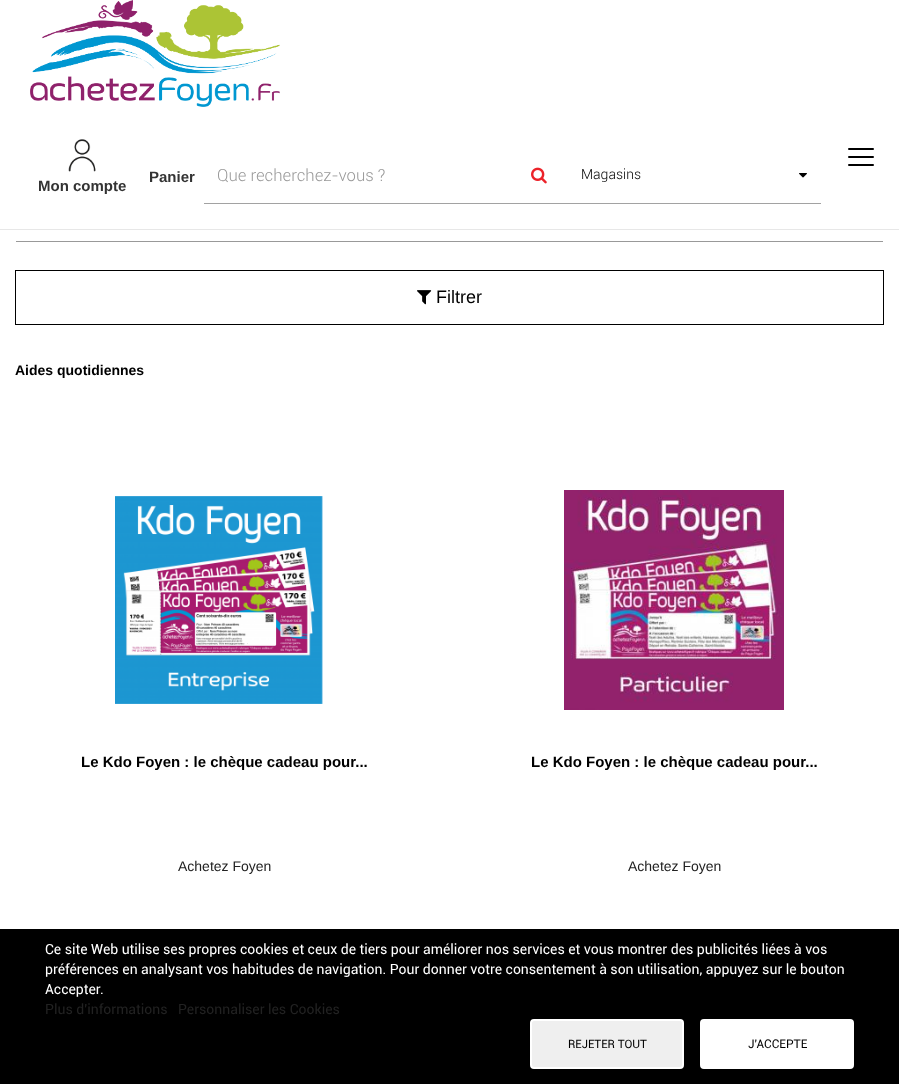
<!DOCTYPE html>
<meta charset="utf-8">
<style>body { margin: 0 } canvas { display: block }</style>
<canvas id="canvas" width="899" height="1084"></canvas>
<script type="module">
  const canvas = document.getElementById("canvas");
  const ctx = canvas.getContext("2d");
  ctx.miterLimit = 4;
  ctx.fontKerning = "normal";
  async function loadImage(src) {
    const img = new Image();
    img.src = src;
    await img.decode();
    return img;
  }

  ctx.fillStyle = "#ffffff";
  ctx.fillRect(0, 0, 899, 1084);
  ctx.drawImage(await loadImage("img1.png"), 30, 0, 250, 107);
  ctx.font = "bold 15px Liberation Sans";
  ctx.fillStyle = "#333333";
  ctx.fillText("Panier", 149, 182);
  ctx.drawImage(await loadImage("img2.png"), 68, 139, 28, 33);
  ctx.fillText("Mon compte", 38, 191);
  ctx.fillStyle = "#e7e7e7";
  ctx.fillRect(0, 229, 899, 1);
  ctx.fillStyle = "#000000";
  ctx.beginPath();
  ctx.roundRect(848, 148, 26, 2, 1);
  ctx.fill();
  ctx.beginPath();
  ctx.roundRect(848, 156, 26, 2, 1);
  ctx.fill();
  ctx.beginPath();
  ctx.roundRect(848, 164, 26, 2, 1);
  ctx.fill();
  ctx.fillStyle = "#a2a2a2";
  ctx.fillRect(204, 203, 617, 1);
  ctx.font = "300 16.75px Roboto";
  ctx.fillStyle = "#999999";
  ctx.fillText("Que recherchez-vous ?", 217, 181);
  ctx.drawImage(await loadImage("img3.png"), 531, 167, 16, 17);
  ctx.font = "300 14px Roboto";
  ctx.fillStyle = "#000000";
  ctx.fillText("Magasins", 581, 179);
  ctx.drawImage(await loadImage("img4.png"), 799, 173, 8, 5);
  ctx.strokeStyle = "#000000";
  ctx.strokeRect(15.5, 270.5, 868, 54);
  ctx.fillStyle = "#999999";
  ctx.fillRect(16, 241, 867, 1);
  ctx.drawImage(await loadImage("img5.png"), 417, 290, 15, 15);
  ctx.font = "18px Liberation Sans";
  ctx.fillStyle = "#000000";
  ctx.fillText("Filtrer", 436, 303);
  ctx.font = "bold 14px Liberation Sans";
  ctx.fillText("Aides quotidiennes", 15, 375);
  ctx.drawImage(await loadImage("img6.png"), 115, 496, 208, 208);
  ctx.font = "bold 15px Liberation Sans";
  ctx.fillText("Le Kdo Foyen : le chèque cadeau pour...", 81, 767);
  ctx.font = "14px Liberation Sans";
  ctx.fillStyle = "#222222";
  ctx.fillText("Achetez Foyen", 178, 871);
  ctx.drawImage(await loadImage("img7.png"), 564, 490, 220, 220);
  ctx.font = "bold 15px Liberation Sans";
  ctx.fillStyle = "#000000";
  ctx.fillText("Le Kdo Foyen : le chèque cadeau pour...", 531, 767);
  ctx.font = "14px Liberation Sans";
  ctx.fillStyle = "#222222";
  ctx.fillText("Achetez Foyen", 628, 871);
  ctx.fillStyle = "#000000";
  ctx.fillRect(0, 929, 899, 155);
  ctx.font = "14px Roboto";
  ctx.fillStyle = "#ffffff";
  ctx.fillText("Ce site Web utilise ses propres cookies et ceux de tiers pour améliorer nos services et vous montrer des publicités liées à vos", 45, 954);
  ctx.fillText("préférences en analysant vos habitudes de navigation. Pour donner votre consentement à son utilisation, appuyez sur le bouton", 45, 974);
  ctx.fillText("Accepter.", 45, 994);
  ctx.fillStyle = "#222222";
  ctx.fillText("Plus d'informations", 45, 1014);
  ctx.fillText("Personnaliser les Cookies", 178, 1014);
  ctx.fillStyle = "#efefef";
  ctx.beginPath();
  ctx.roundRect(531, 1020, 152, 48, 3);
  ctx.fill();
  ctx.strokeStyle = "#ffffff";
  ctx.lineWidth = 2;
  ctx.stroke();
  ctx.font = "11.5px Roboto";
  ctx.fillStyle = "#000000";
  ctx.fillText("REJETER TOUT", 568, 1048);
  ctx.fillStyle = "#ffffff";
  ctx.beginPath();
  ctx.roundRect(701, 1020, 152, 48, 3);
  ctx.fill();
  ctx.stroke();
  ctx.font = "12px Roboto";
  ctx.fillStyle = "#000000";
  ctx.fillText("J'ACCEPTE", 748, 1048);
</script>
